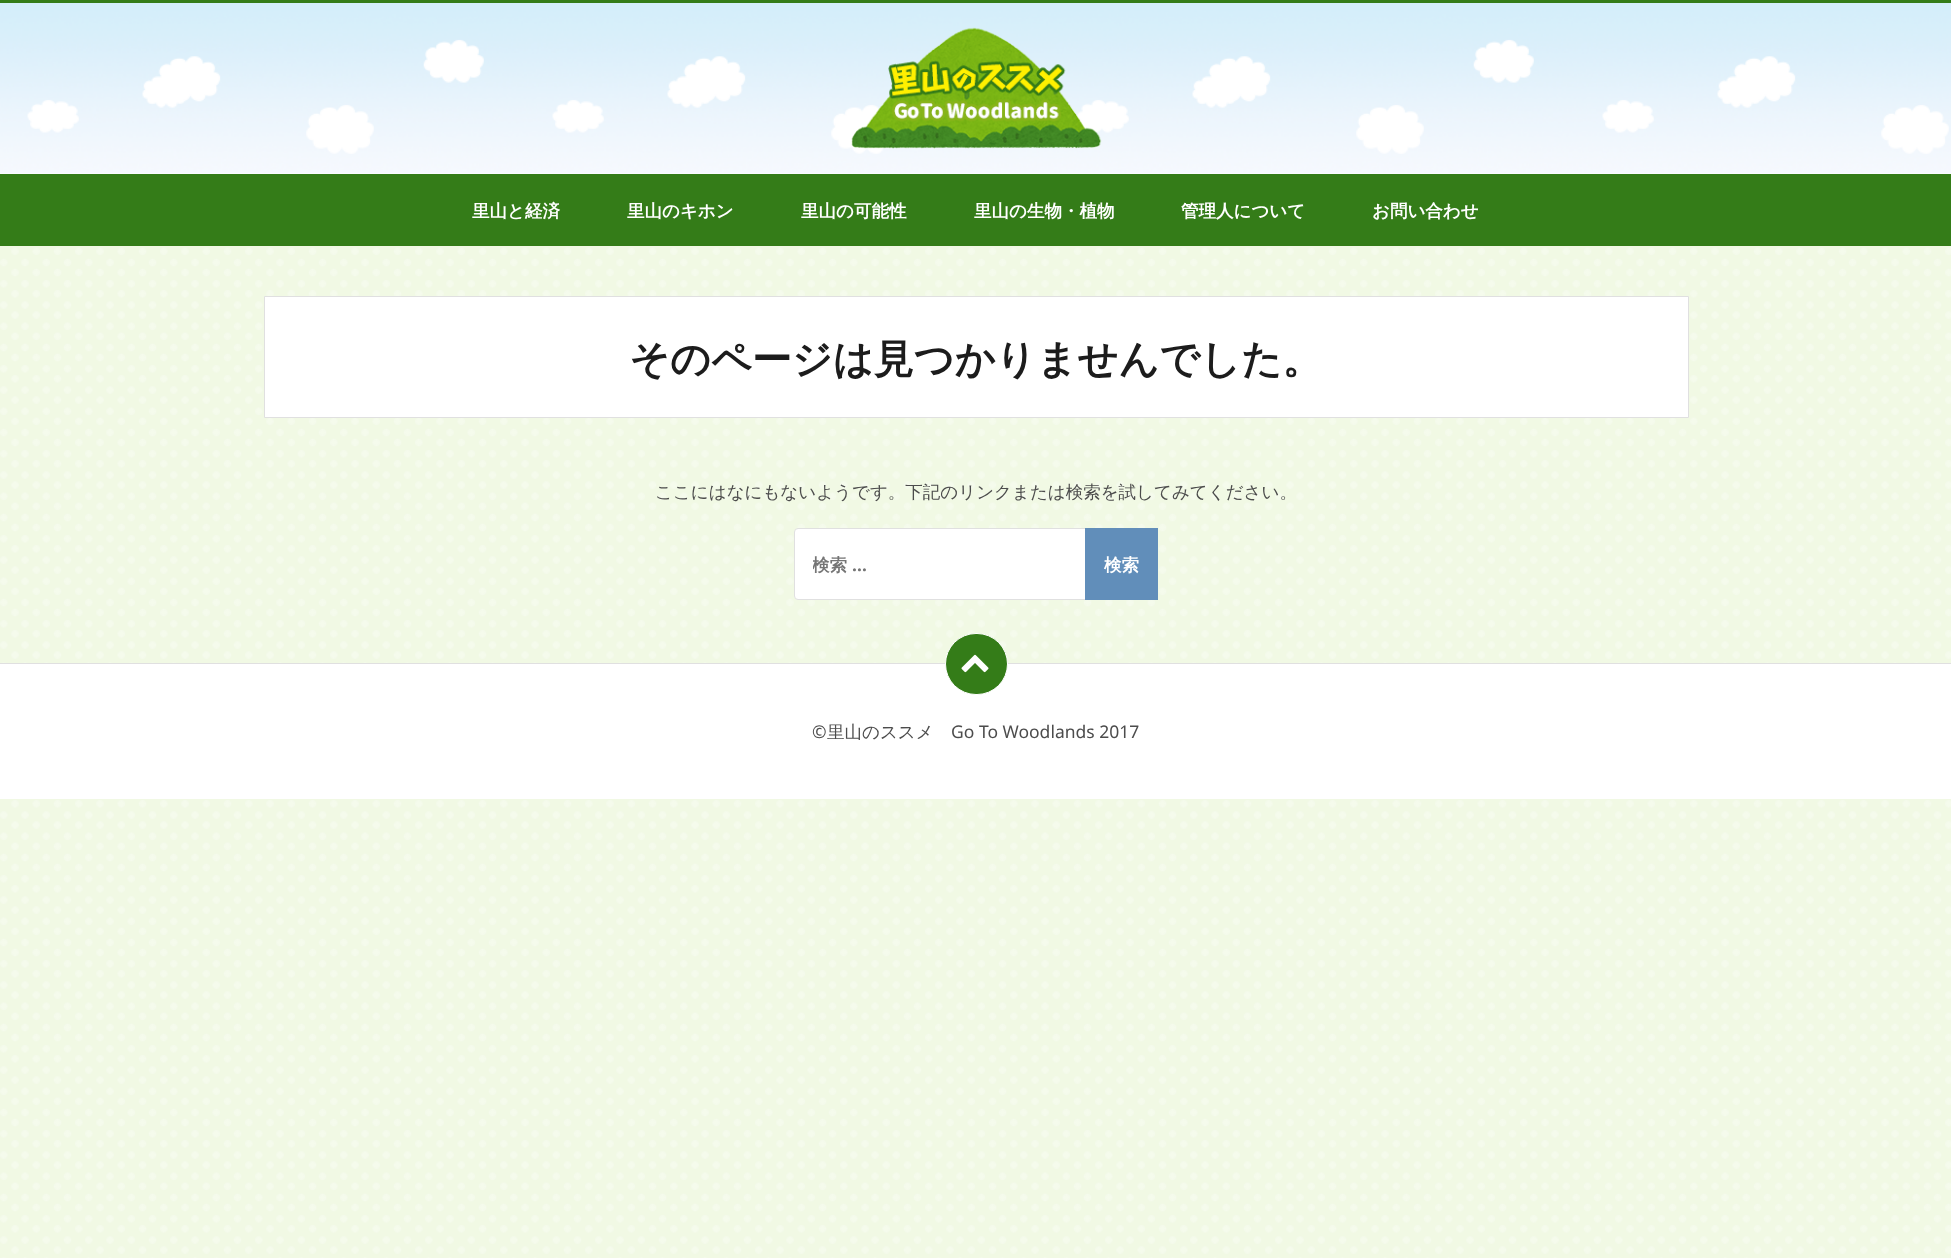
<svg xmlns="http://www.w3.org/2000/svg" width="1951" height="1258">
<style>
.a{font:bold 17.5px WenQuanYi Zen Hei;fill:#fff}
.b{font:bold 40px WenQuanYi Zen Hei;fill:#1c1c1c}
.c{font:500 17.5px WenQuanYi Zen Hei;fill:#4c4c4c}
.d{font:bold 17.5px WenQuanYi Zen Hei;fill:#757575}
.e{font:bold 17.5px Noto Sans;fill:#757575}
.f{font:17.5px Noto Sans;fill:#4c4c4c}
</style>
<defs>
<clipPath id="clip1"><path d="M813 551h282v25H813z"/></clipPath>
</defs>
<rect width="100%" height="100%" fill="#fff"/>
<image href="1.png" x="0" y="246" width="1951" height="1012"/>
<image href="2.png" x="0" y="3" width="1951" height="171"/>
<path fill="#347c18" d="M0 0h1951v3H0z"/>
<image href="3.png" x="851" y="27" width="251" height="122"/>
<path fill="#347c18" d="M0 174h1951v72H0z"/>
<path fill="#fff" stroke="#e0e0e0" d="M264.5 296.5h1424v121H264.5z"/>
<rect fill="#fff" stroke="#e0e0e0" x="794.5" y="528.5" width="324" height="71" rx="3.5"/>
<path fill="#618eba" d="M1085 528h73v72H1085z"/>
<path fill="#fff" d="M0 664h1951v135H0z"/>
<path fill="#e0e0e0" d="M0 663h1951v1H0z"/>
<rect fill="#347c18" stroke="#fff" x="945.5" y="633.5" width="62" height="61" rx="30.5"/>
<image href="4.png" x="961" y="654" width="28" height="19"/>
<text class="a" x="472" y="217">里山と経済</text>
<text class="a" x="627" y="217">里山のキホン</text>
<text class="a" x="801" y="217">里山の可能性</text>
<text class="a" x="974" y="217">里山の生物・植物</text>
<text class="a" x="1181" y="217">管理人について</text>
<text class="a" x="1372" y="217">お問い合わせ</text>
<text class="b" x="629" y="373">そのページは見つかりませんでした。</text>
<text class="c" x="655" y="498">ここにはなにもないようです。下記のリンクまたは検索を試してみてください。</text>
<g clip-path="url(#clip1)">
<text class="d" x="812" y="571">検索</text>
</g>
<text class="e" x="852" y="571">…</text>
<text class="a" x="1104" y="571">検索</text>
<text class="f" x="812" y="738">©</text>
<text class="c" x="827" y="738">里山のススメ</text>
<text class="f" x="951" y="738">Go To Woodlands 2017</text>
</svg>
